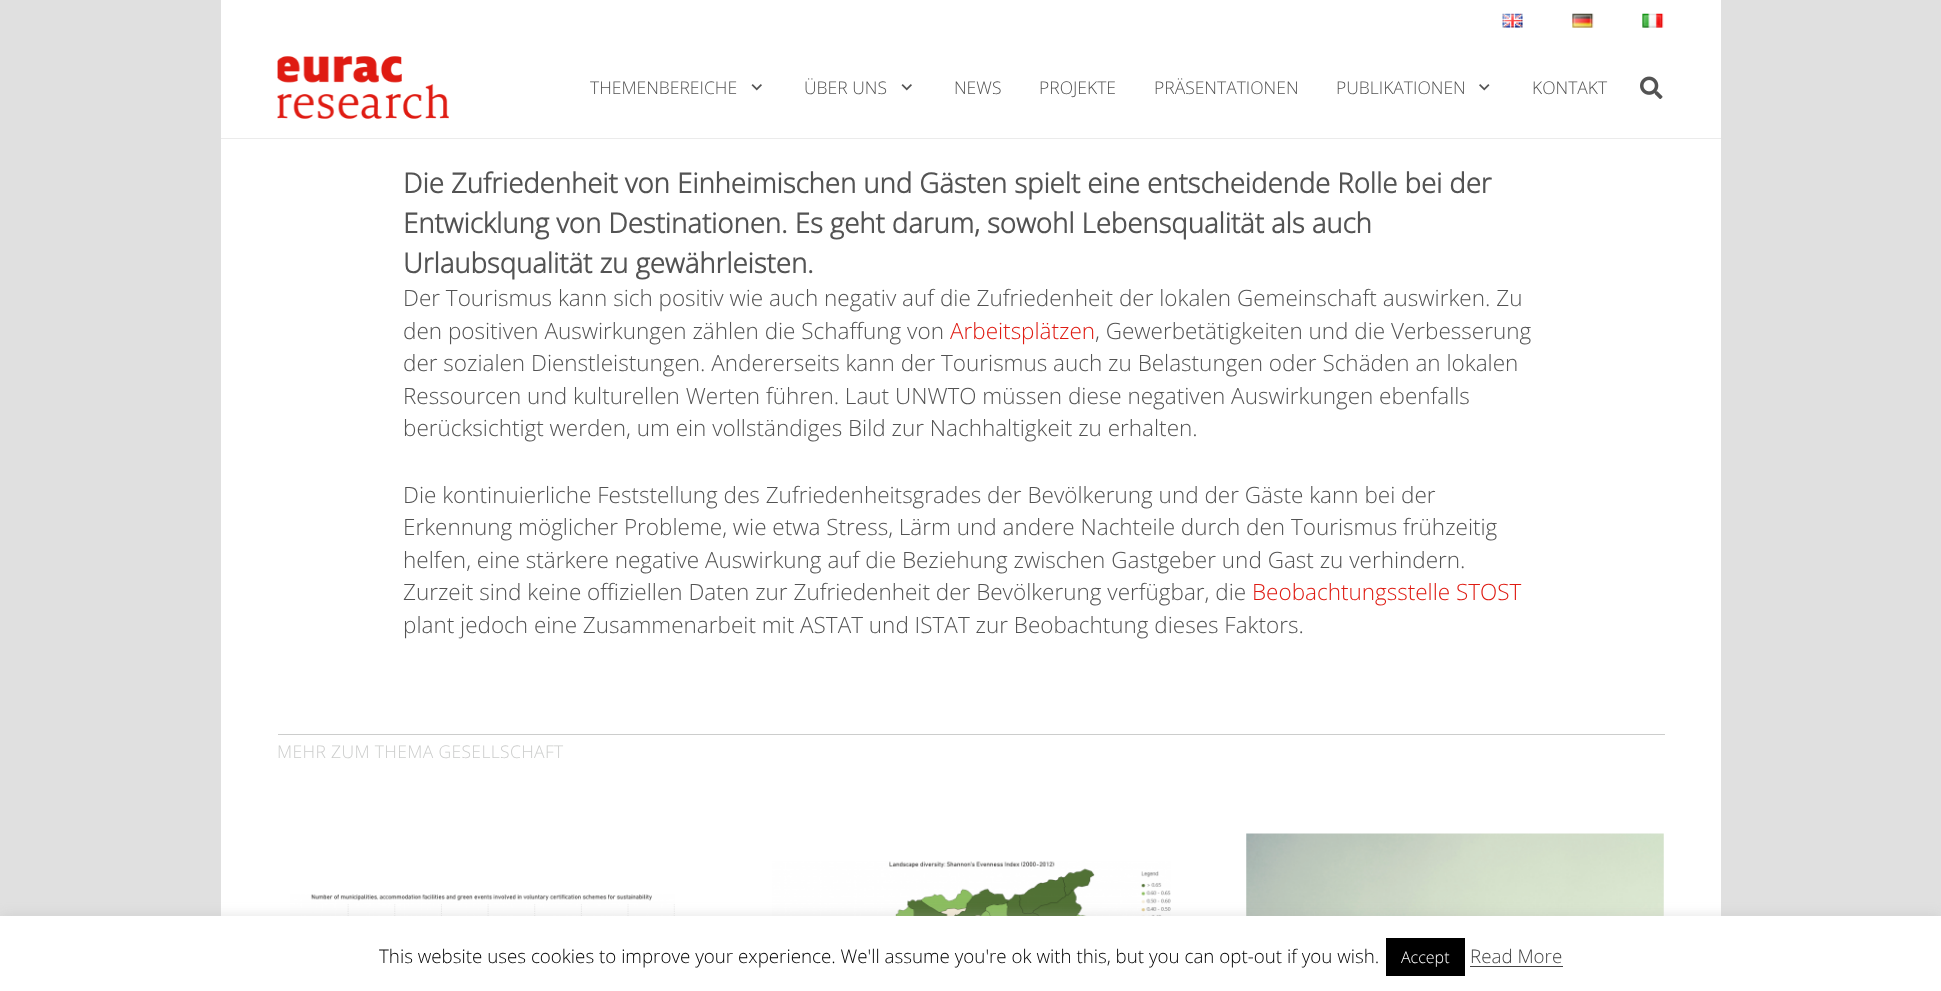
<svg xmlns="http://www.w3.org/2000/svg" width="1941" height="991">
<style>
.a{font:300 17.5px Open Sans;fill:#535353}
.b{font:bold 27.5px Open Sans;fill:#535353}
.c{font:300 22.5px Open Sans;fill:#535353}
.d{font:300 22.5px Open Sans;fill:#df1b12}
.e{font:300 17.5px Open Sans;letter-spacing:0.35px;fill:#cccdcc}
.f{font:300 18.75px Open Sans;fill:#000}
.g{font:300 16px Open Sans;fill:#fff}
.h{font:300 18.75px Open Sans;fill:#444}
</style>
<rect width="100%" height="100%" fill="#e0e0e0"/>
<path fill="#fff" d="M221 0h1500v916H221z"/>
<image href="1.png" x="1502" y="13" width="21" height="15"/>
<image href="2.png" x="1572" y="13" width="22" height="15"/>
<image href="3.png" x="1642" y="13" width="22" height="15"/>
<path fill="#ebebeb" d="M221 39v100h1500v-1h-1500z"/>
<image href="4.png" x="277" y="56" width="172" height="63"/>
<image href="5.png" x="751" y="84" width="11" height="7"/>
<image href="5.png" x="901" y="84" width="11" height="7"/>
<image href="6.png" x="1479" y="84" width="11" height="7"/>
<image href="7.png" x="1640" y="76" width="23" height="23"/>
<path fill="#cccdcc" d="M278 734h1387v1H278z"/>
<image href="8.png" x="290" y="894" width="385" height="22"/>
<image href="9.png" x="772" y="861" width="399" height="55"/>
<image href="10.png" x="1246" y="833" width="418" height="83"/>
<path fill="#acabab4d" filter="blur(6px)" d="M0 915h1941v75H0z"/>
<path fill="#fff" d="M0 916h1941v75H0z"/>
<path fill="#000" d="M1386 938h79v38H1386z"/>
<path fill="#444" d="M1470 966h93v1H1470z"/>
<text class="a" x="590" y="94">THEMENBEREICHE</text>
<text class="a" x="804" y="94">ÜBER UNS</text>
<text class="a" x="954" y="94">NEWS</text>
<text class="a" x="1039" y="94">PROJEKTE</text>
<text class="a" x="1154" y="94">PRÄSENTATIONEN</text>
<text class="a" x="1336" y="94">PUBLIKATIONEN</text>
<text class="a" x="1532" y="94">KONTAKT</text>
<text class="b" x="403" y="193">Die Zufriedenheit von Einheimischen und Gästen spielt eine entscheidende Rolle bei der</text>
<text class="b" x="403" y="233">Entwicklung von Destinationen. Es geht darum, sowohl Lebensqualität als auch</text>
<text class="b" x="403" y="273">Urlaubsqualität zu gewährleisten.</text>
<text class="c" x="403" y="306">Der Tourismus kann sich positiv wie auch negativ auf die Zufriedenheit der lokalen Gemeinschaft auswirken. Zu</text>
<text class="c" x="403" y="339">den positiven Auswirkungen zählen die Schaffung von</text>
<text class="d" x="950" y="339">Arbeitsplätzen</text>
<text class="c" x="1095" y="339">, Gewerbetätigkeiten und die Verbesserung</text>
<text class="c" x="403" y="371">der sozialen Dienstleistungen. Andererseits kann der Tourismus auch zu Belastungen oder Schäden an lokalen</text>
<text class="c" x="403" y="404">Ressourcen und kulturellen Werten führen. Laut UNWTO müssen diese negativen Auswirkungen ebenfalls</text>
<text class="c" x="403" y="436">berücksichtigt werden, um ein vollständiges Bild zur Nachhaltigkeit zu erhalten.</text>
<text class="c" x="403" y="503">Die kontinuierliche Feststellung des Zufriedenheitsgrades der Bevölkerung und der Gäste kann bei der</text>
<text class="c" x="403" y="535">Erkennung möglicher Probleme, wie etwa Stress, Lärm und andere Nachteile durch den Tourismus frühzeitig</text>
<text class="c" x="403" y="568">helfen, eine stärkere negative Auswirkung auf die Beziehung zwischen Gastgeber und Gast zu verhindern.</text>
<text class="c" x="403" y="600">Zurzeit sind keine offiziellen Daten zur Zufriedenheit der Bevölkerung verfügbar, die</text>
<text class="d" x="1252" y="600">Beobachtungsstelle STOST</text>
<text class="c" x="403" y="633">plant jedoch eine Zusammenarbeit mit ASTAT und ISTAT zur Beobachtung dieses Faktors.</text>
<text class="e" x="277" y="758">MEHR ZUM THEMA GESELLSCHAFT</text>
<text class="f" x="379" y="963">This website uses cookies to improve your experience. We'll assume you're ok with this, but you can opt-out if you wish.</text>
<text class="g" x="1401" y="963">Accept</text>
<text class="h" x="1470" y="963">Read More</text>
</svg>
